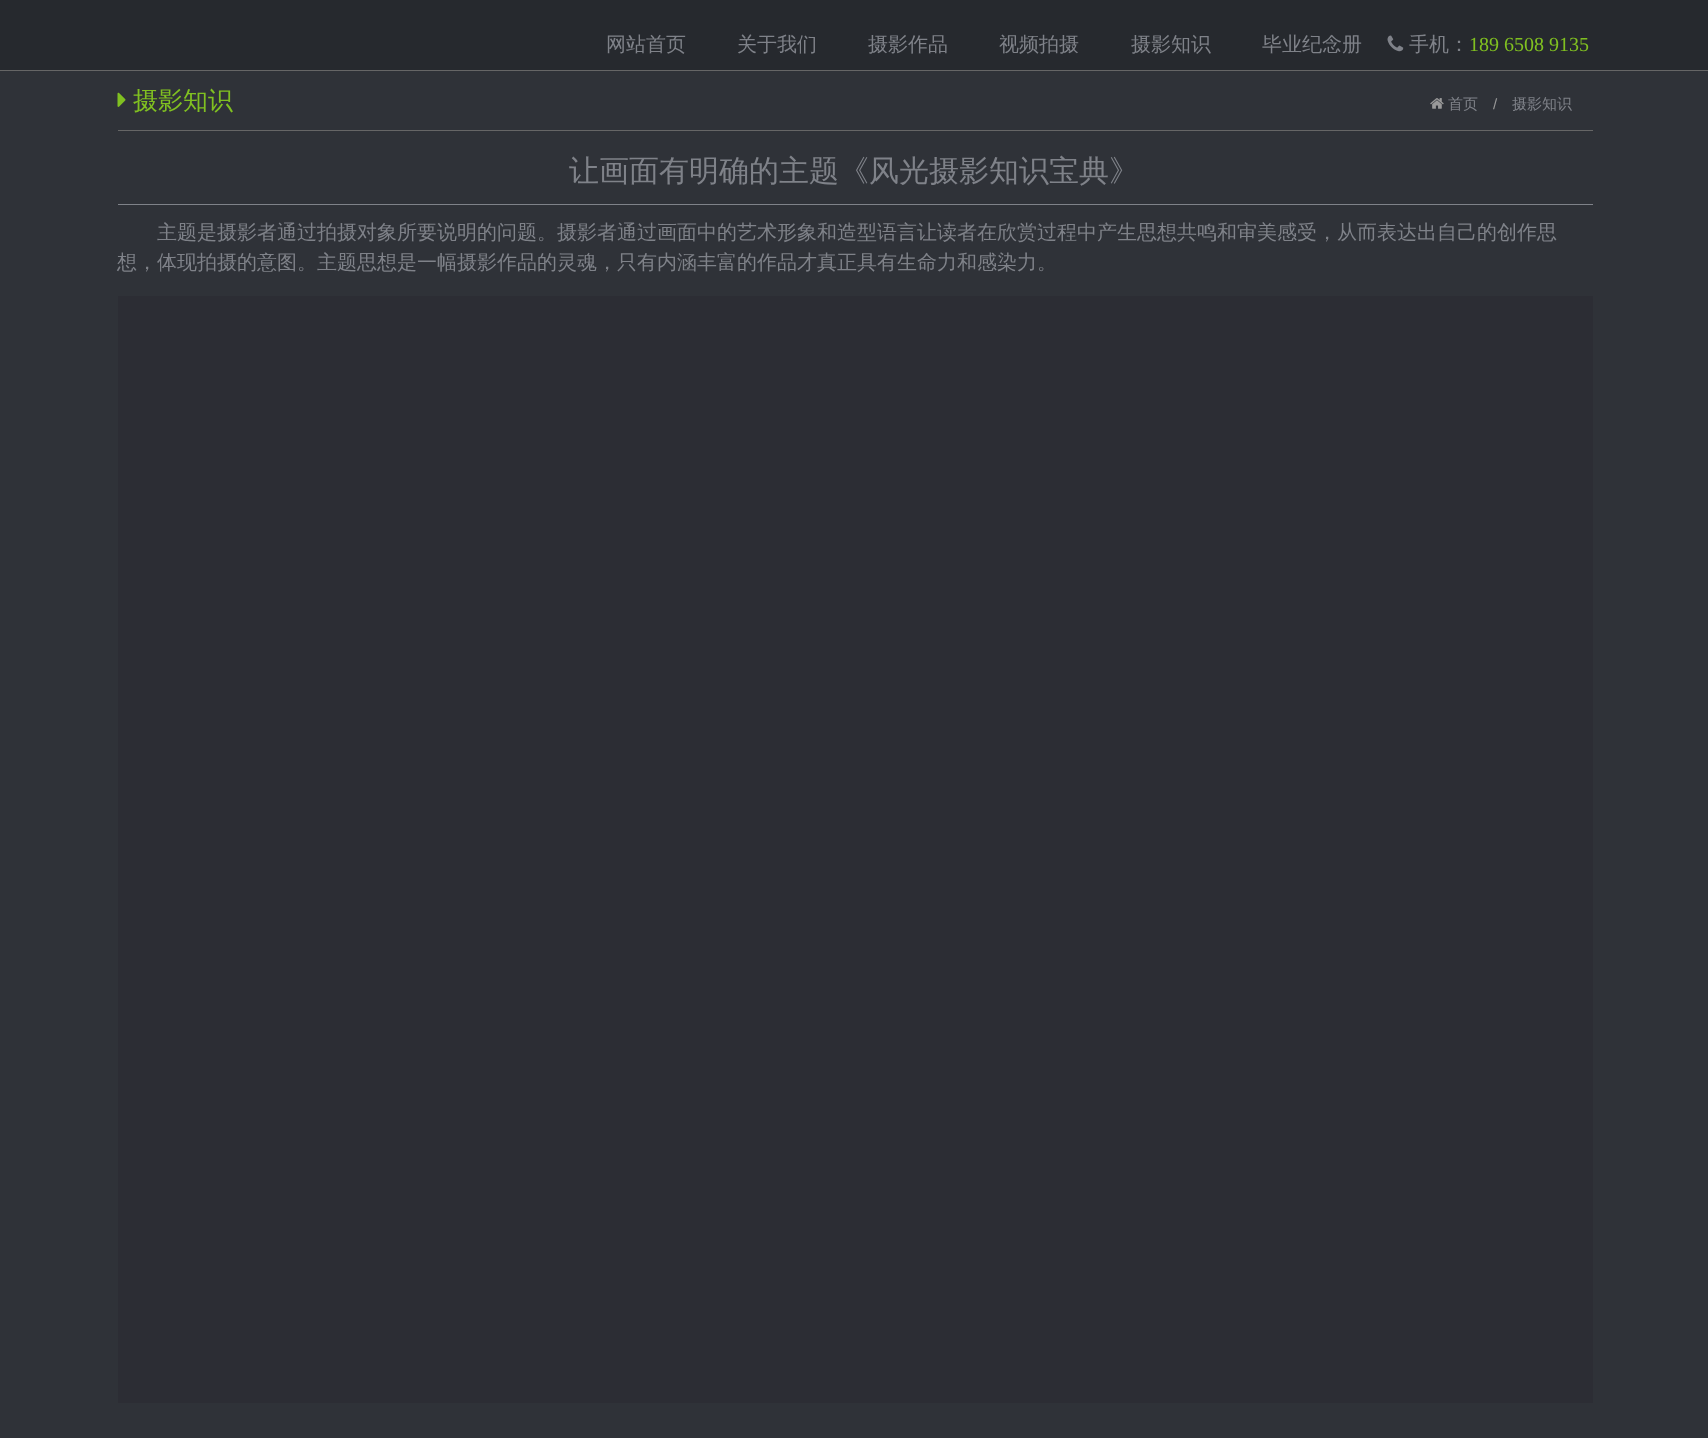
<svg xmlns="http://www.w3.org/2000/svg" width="1708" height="1438">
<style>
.a{font:500 20px WenQuanYi Zen Hei;fill:#7f8289}
.b{font:20px Liberation Serif;fill:#80c021}
.c{font:500 25px WenQuanYi Zen Hei;fill:#80c021}
.d{font:500 15px WenQuanYi Zen Hei;fill:#7f8289}
.e{font:15px Liberation Sans;fill:#999}
.f{font:500 30px WenQuanYi Zen Hei;fill:#7f8289}
</style>
<rect width="100%" height="100%" fill="#2f3238"/>
<path fill="#26292e" d="M0 0h1708v70H0z"/>
<path fill="#666" d="M0 70h1708v1H0z"/>
<image href="1.png" x="1387" y="35" width="17" height="17"/>
<path fill="#666" d="M118 130h1475v1H118z"/>
<image href="2.png" x="117" y="92" width="9" height="15"/>
<image href="3.png" x="1430" y="98" width="14" height="11"/>
<path fill="#7f8289" d="M118 204h1475v1H118z"/>
<path fill="#2c2d34" d="M118 296h1475v1107H118z"/>
<text class="a" x="606" y="51">网站首页</text>
<text class="a" x="737" y="51">关于我们</text>
<text class="a" x="868" y="51">摄影作品</text>
<text class="a" x="999" y="51">视频拍摄</text>
<text class="a" x="1131" y="51">摄影知识</text>
<text class="a" x="1262" y="51">毕业纪念册</text>
<text class="a" x="1409" y="51">手机：</text>
<text class="b" x="1469" y="51">189 6508 9135</text>
<text class="c" x="133" y="109">摄影知识</text>
<text class="d" x="1448" y="109">首页</text>
<text class="e" x="1493" y="109">/</text>
<text class="d" x="1512" y="109">摄影知识</text>
<text class="f" x="569" y="181">让画面有明确的主题《风光摄影知识宝典》</text>
<text class="a" x="157" y="239">主题是摄影者通过拍摄对象所要说明的问题。摄影者通过画面中的艺术形象和造型语言让读者在欣赏过程中产生思想共鸣和审美感受，从而表达出自己的创作思</text>
<text class="a" x="117" y="269">想，体现拍摄的意图。主题思想是一幅摄影作品的灵魂，只有内涵丰富的作品才真正具有生命力和感染力。</text>
</svg>
